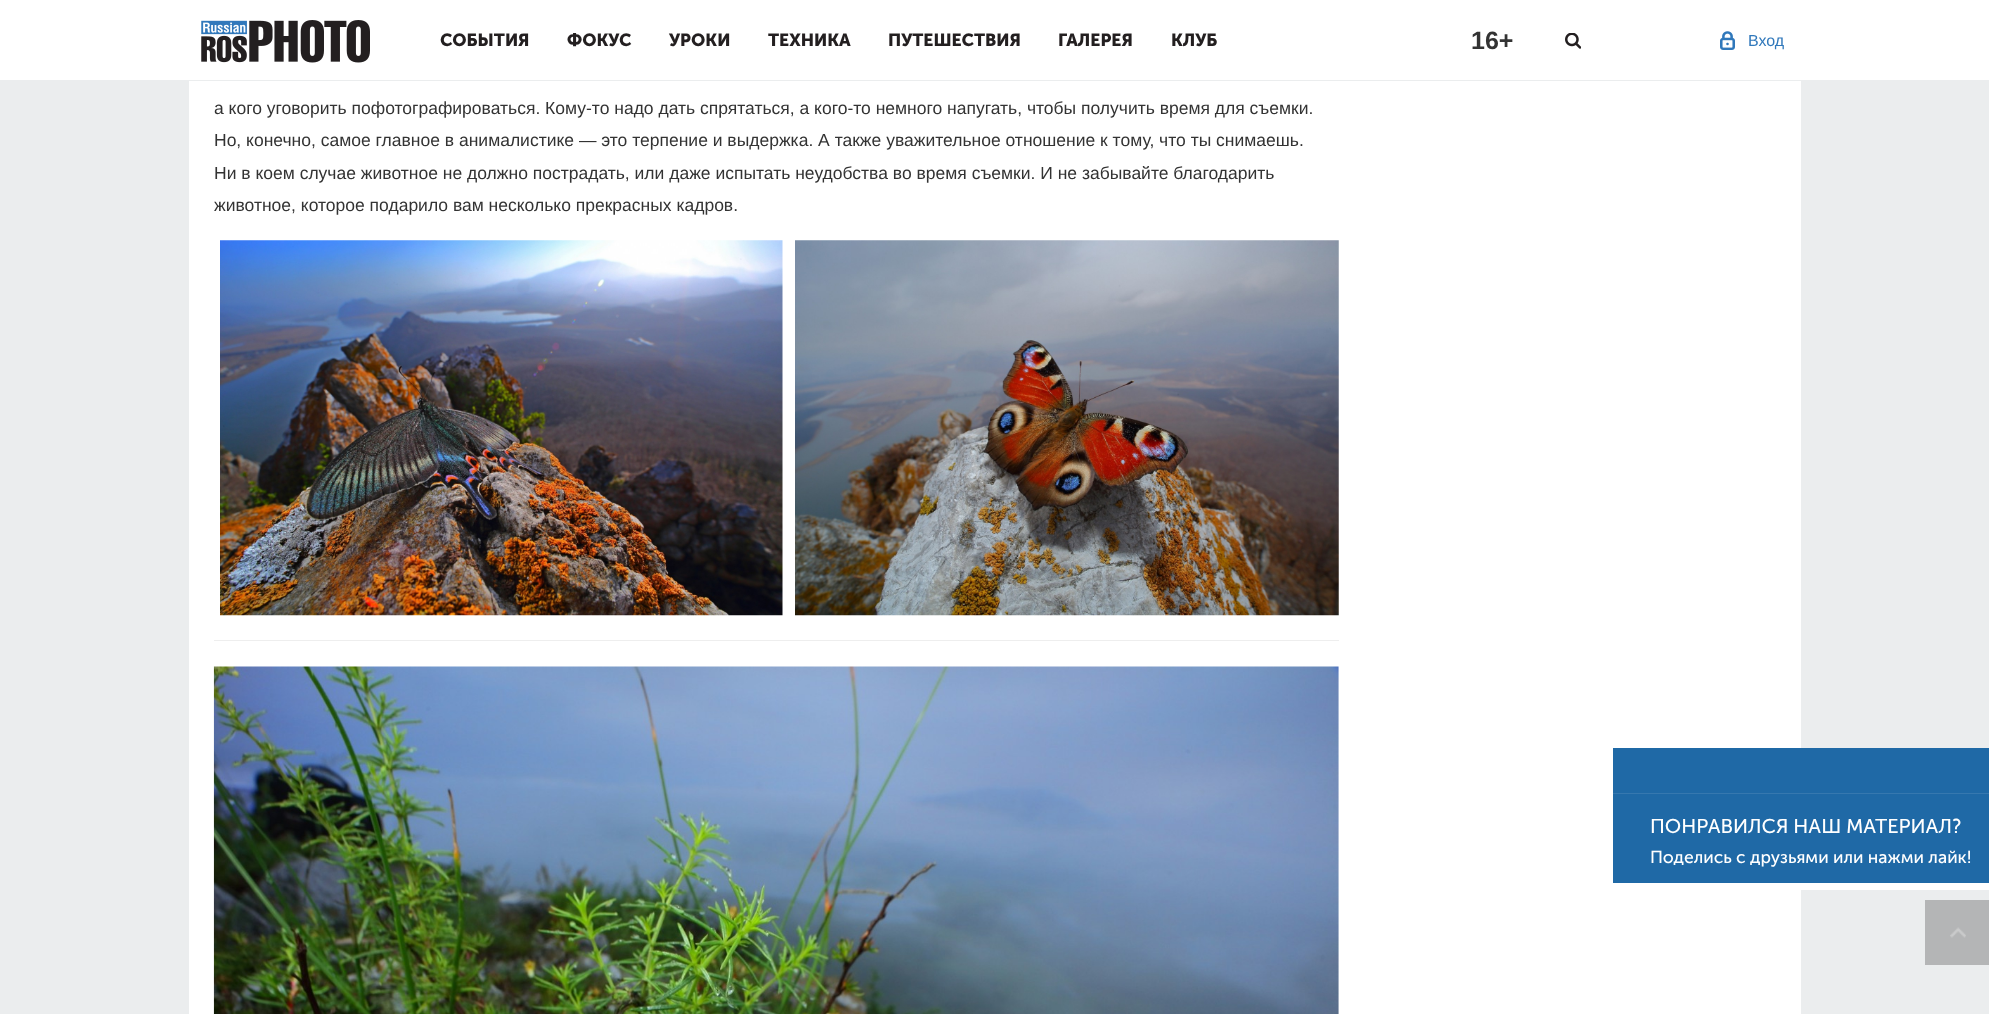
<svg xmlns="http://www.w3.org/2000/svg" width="1989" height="1014">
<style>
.a{font:bold 17.5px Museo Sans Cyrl;fill:#231f20}
.b{font:bold 25px Liberation Sans;fill:#333}
.c{font:16px Liberation Sans;fill:#3078bb}
.d{font:17.5px Liberation Sans;fill:#333}
.e{font:20px Museo Sans Cyrl;fill:#fff}
.f{font:17.5px Museo Sans Cyrl;fill:#fff}
</style>
<rect width="100%" height="100%" fill="#ebedee"/>
<path fill="#fff" d="M0 0h1989v80H0z"/>
<image href="1.png" x="201" y="20" width="169" height="43"/>
<image href="2.png" x="1565" y="33" width="16" height="16"/>
<image href="3.png" x="1720" y="31" width="15" height="19"/>
<path fill="#fff" d="M189 81h1612v933H189z"/>
<image href="4.png" x="220" y="240" width="563" height="376"/>
<image href="5.png" x="795" y="240" width="544" height="376"/>
<path fill="#eee" d="M214 640h1125v1H214z"/>
<image href="6.png" x="213" y="666" width="1126" height="348"/>
<path fill="#1f69a6" d="M1613 748h376v45H1613z"/>
<path fill="#3678af" d="M1613 793h376v1H1613z"/>
<path fill="#1f69a6" d="M1613 794h376v89H1613z"/>
<path fill="#fff" d="M1801 883h188v7H1801z"/>
<path fill="#b4b5b6" d="M1925 900h64v65H1925z"/>
<image href="7.png" x="1950" y="927" width="16" height="11"/>
<text class="a" x="440" y="46">СОБЫТИЯ</text>
<text class="a" x="567" y="46">ФОКУС</text>
<text class="a" x="669" y="46">УРОКИ</text>
<text class="a" x="768" y="46">ТЕХНИКА</text>
<text class="a" x="888" y="46">ПУТЕШЕСТВИЯ</text>
<text class="a" x="1058" y="46">ГАЛЕРЕЯ</text>
<text class="a" x="1171" y="46">КЛУБ</text>
<text class="b" x="1471" y="49">16+</text>
<text class="c" x="1748" y="46">Вход</text>
<text class="d" x="214" y="114">а кого уговорить пофотографироваться. Кому-то надо дать спрятаться, а кого-то немного напугать, чтобы получить время для съемки.</text>
<text class="d" x="214" y="146">Но, конечно, самое главное в анималистике — это терпение и выдержка. А также уважительное отношение к тому, что ты снимаешь.</text>
<text class="d" x="214" y="179">Ни в коем случае животное не должно пострадать, или даже испытать неудобства во время съемки. И не забывайте благодарить</text>
<text class="d" x="214" y="211">животное, которое подарило вам несколько прекрасных кадров.</text>
<text class="e" x="1650" y="833">ПОНРАВИЛСЯ НАШ МАТЕРИАЛ?</text>
<text class="f" x="1650" y="863">Поделись с друзьями или нажми лайк!</text>
</svg>
